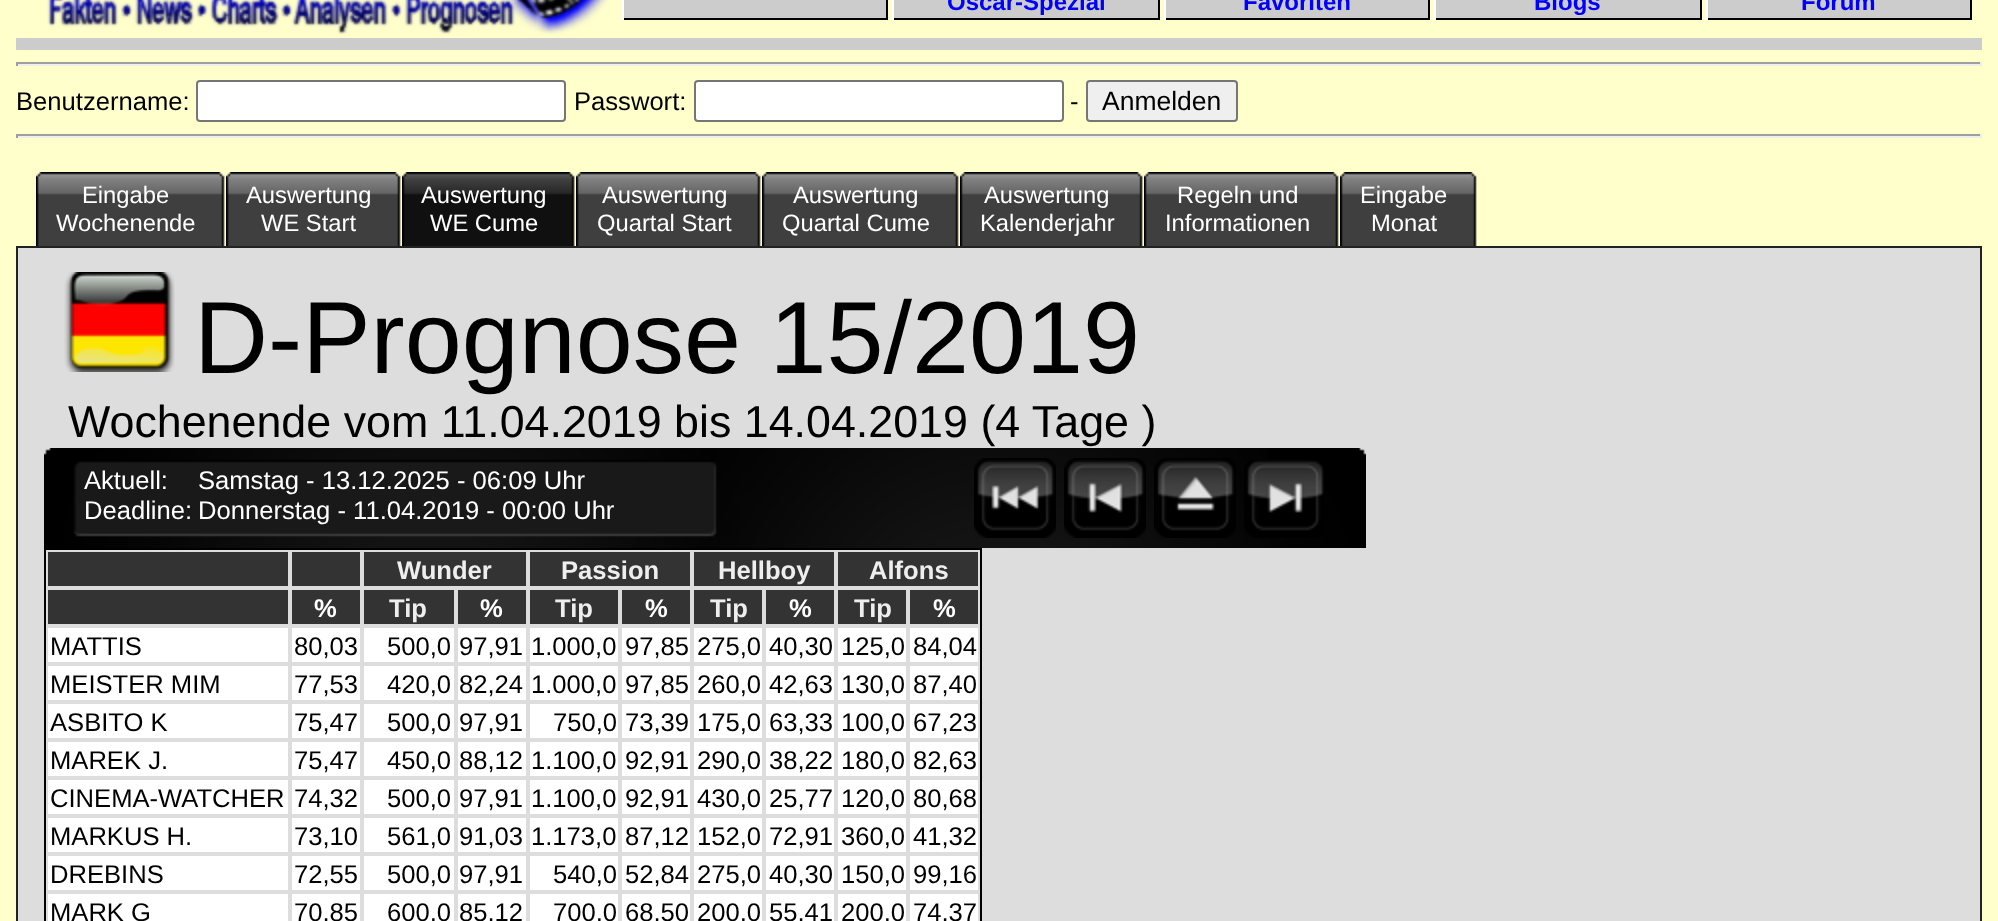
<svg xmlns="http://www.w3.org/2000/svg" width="1998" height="921">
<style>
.a{font:bold 24px Liberation Sans;fill:#00f}
.b{font:25.6px Liberation Sans;fill:#000}
.c{font:26.5px Liberation Sans;fill:#000}
.d{font:23.75px Liberation Sans;fill:#fff}
.e{font:102.5px Liberation Sans;fill:#000}
.f{font:44.8px Liberation Sans;fill:#000}
.g{font:25.6px Liberation Sans;fill:#fff}
.h{font:bold 25.6px Liberation Sans;fill:#eee}
.i{font:bold 25.6px Liberation Sans;fill:#fff}
</style>
<rect width="100%" height="100%" fill="#ffc"/>
<image href="1.png" x="47" y="0" width="561" height="34"/>
<path fill="#ccc" d="M624 0h262v18H624z"/>
<path fill="#000" d="M886 0h2v20H886z"/>
<path fill="#000" d="M622 18h266v2H622z"/>
<path fill="#fff" d="M622 0h2v20H622z"/>
<path fill="#ccc" d="M894 0h264v18H894z"/>
<path fill="#000" d="M1158 0h2v20H1158z"/>
<path fill="#000" d="M892 18h268v2H892z"/>
<path fill="#fff" d="M892 0h2v20H892z"/>
<path fill="#ccc" d="M1166 0h262v18H1166z"/>
<path fill="#000" d="M1428 0h2v20H1428z"/>
<path fill="#000" d="M1164 18h266v2H1164z"/>
<path fill="#fff" d="M1164 0h2v20H1164z"/>
<path fill="#ccc" d="M1436 0h264v18H1436z"/>
<path fill="#000" d="M1700 0h2v20H1700z"/>
<path fill="#000" d="M1434 18h268v2H1434z"/>
<path fill="#fff" d="M1434 0h2v20H1434z"/>
<path fill="#ccc" d="M1708 0h262v18H1708z"/>
<path fill="#000" d="M1970 0h2v20H1970z"/>
<path fill="#000" d="M1706 18h266v2H1706z"/>
<path fill="#fff" d="M1706 0h2v20H1706z"/>
<path fill="#ccc" d="M16 38h1966v12H16z"/>
<path fill="#9f9f9f" d="M16 62h1966v2H16z"/>
<path fill="#eee" d="M1980 62h2v4H1980z"/>
<path fill="#eee" d="M16 64h1966v2H16z"/>
<path fill="#9f9f9f" d="M16 62h2v4H16z"/>
<rect fill="#fff" stroke="#767676" stroke-width="2" x="197" y="81" width="368" height="40" rx="3"/>
<rect fill="#fff" stroke="#767676" stroke-width="2" x="695" y="81" width="368" height="40" rx="3"/>
<rect fill="#efefef" stroke="#767676" stroke-width="2" x="1087" y="81" width="150" height="40" rx="3"/>
<path fill="#9f9f9f" d="M16 134h1966v2H16z"/>
<path fill="#eee" d="M1980 134h2v4H1980z"/>
<path fill="#eee" d="M16 136h1966v2H16z"/>
<path fill="#9f9f9f" d="M16 134h2v4H16z"/>
<image href="2.png" x="36" y="172" width="8" height="74"/>
<image href="3.png" x="44" y="172" width="181" height="74"/>
<image href="2.png" x="226" y="172" width="8" height="74"/>
<image href="4.png" x="234" y="172" width="167" height="74"/>
<image href="5.png" x="402" y="172" width="8" height="74"/>
<image href="6.png" x="410" y="172" width="165" height="74"/>
<image href="2.png" x="576" y="172" width="8" height="74"/>
<image href="7.png" x="584" y="172" width="177" height="74"/>
<image href="2.png" x="762" y="172" width="8" height="74"/>
<image href="8.png" x="770" y="172" width="189" height="74"/>
<image href="2.png" x="960" y="172" width="8" height="74"/>
<image href="9.png" x="968" y="172" width="175" height="74"/>
<image href="2.png" x="1144" y="172" width="8" height="74"/>
<image href="10.png" x="1152" y="172" width="187" height="74"/>
<image href="2.png" x="1340" y="172" width="8" height="74"/>
<image href="11.png" x="1348" y="172" width="129" height="74"/>
<path fill="#ddd" stroke="#222" stroke-width="2" d="M17 247h1964v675H17z"/>
<image href="12.png" x="64" y="272" width="111" height="100"/>
<image href="13.png" x="44" y="448" width="1322" height="100"/>
<image href="14.png" x="974" y="458" width="82" height="80"/>
<image href="15.png" x="1064" y="458" width="82" height="80"/>
<image href="16.png" x="1154" y="458" width="82" height="80"/>
<image href="17.png" x="1244" y="460" width="80" height="78"/>
<path fill="none" stroke="#000" stroke-width="2" d="M45 549h936v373H45z"/>
<path fill="#333" d="M48 552h240v34H48z"/>
<path fill="#333" d="M292 552h68v34H292z"/>
<path fill="#333" d="M364 552h162v34H364z"/>
<path fill="#333" d="M530 552h160v34H530z"/>
<path fill="#333" d="M694 552h140v34H694z"/>
<path fill="#333" d="M838 552h140v34H838z"/>
<path fill="#333" d="M48 590h240v34H48z"/>
<path fill="#333" d="M292 590h68v34H292z"/>
<path fill="#333" d="M364 590h90v34H364z"/>
<path fill="#333" d="M458 590h68v34H458z"/>
<path fill="#333" d="M530 590h88v34H530z"/>
<path fill="#333" d="M622 590h68v34H622z"/>
<path fill="#333" d="M694 590h68v34H694z"/>
<path fill="#333" d="M766 590h68v34H766z"/>
<path fill="#333" d="M838 590h68v34H838z"/>
<path fill="#333" d="M910 590h68v34H910z"/>
<path fill="#fff" d="M48 628h240v34H48z"/>
<path fill="#fff" d="M292 628h68v34H292z"/>
<path fill="#fff" d="M364 628h90v34H364z"/>
<path fill="#fff" d="M458 628h68v34H458z"/>
<path fill="#fff" d="M530 628h88v34H530z"/>
<path fill="#fff" d="M622 628h68v34H622z"/>
<path fill="#fff" d="M694 628h68v34H694z"/>
<path fill="#fff" d="M766 628h68v34H766z"/>
<path fill="#fff" d="M838 628h68v34H838z"/>
<path fill="#fff" d="M910 628h68v34H910z"/>
<path fill="#fff" d="M48 666h240v34H48z"/>
<path fill="#fff" d="M292 666h68v34H292z"/>
<path fill="#fff" d="M364 666h90v34H364z"/>
<path fill="#fff" d="M458 666h68v34H458z"/>
<path fill="#fff" d="M530 666h88v34H530z"/>
<path fill="#fff" d="M622 666h68v34H622z"/>
<path fill="#fff" d="M694 666h68v34H694z"/>
<path fill="#fff" d="M766 666h68v34H766z"/>
<path fill="#fff" d="M838 666h68v34H838z"/>
<path fill="#fff" d="M910 666h68v34H910z"/>
<path fill="#fff" d="M48 704h240v34H48z"/>
<path fill="#fff" d="M292 704h68v34H292z"/>
<path fill="#fff" d="M364 704h90v34H364z"/>
<path fill="#fff" d="M458 704h68v34H458z"/>
<path fill="#fff" d="M530 704h88v34H530z"/>
<path fill="#fff" d="M622 704h68v34H622z"/>
<path fill="#fff" d="M694 704h68v34H694z"/>
<path fill="#fff" d="M766 704h68v34H766z"/>
<path fill="#fff" d="M838 704h68v34H838z"/>
<path fill="#fff" d="M910 704h68v34H910z"/>
<path fill="#fff" d="M48 742h240v34H48z"/>
<path fill="#fff" d="M292 742h68v34H292z"/>
<path fill="#fff" d="M364 742h90v34H364z"/>
<path fill="#fff" d="M458 742h68v34H458z"/>
<path fill="#fff" d="M530 742h88v34H530z"/>
<path fill="#fff" d="M622 742h68v34H622z"/>
<path fill="#fff" d="M694 742h68v34H694z"/>
<path fill="#fff" d="M766 742h68v34H766z"/>
<path fill="#fff" d="M838 742h68v34H838z"/>
<path fill="#fff" d="M910 742h68v34H910z"/>
<path fill="#fff" d="M48 780h240v34H48z"/>
<path fill="#fff" d="M292 780h68v34H292z"/>
<path fill="#fff" d="M364 780h90v34H364z"/>
<path fill="#fff" d="M458 780h68v34H458z"/>
<path fill="#fff" d="M530 780h88v34H530z"/>
<path fill="#fff" d="M622 780h68v34H622z"/>
<path fill="#fff" d="M694 780h68v34H694z"/>
<path fill="#fff" d="M766 780h68v34H766z"/>
<path fill="#fff" d="M838 780h68v34H838z"/>
<path fill="#fff" d="M910 780h68v34H910z"/>
<path fill="#fff" d="M48 818h240v34H48z"/>
<path fill="#fff" d="M292 818h68v34H292z"/>
<path fill="#fff" d="M364 818h90v34H364z"/>
<path fill="#fff" d="M458 818h68v34H458z"/>
<path fill="#fff" d="M530 818h88v34H530z"/>
<path fill="#fff" d="M622 818h68v34H622z"/>
<path fill="#fff" d="M694 818h68v34H694z"/>
<path fill="#fff" d="M766 818h68v34H766z"/>
<path fill="#fff" d="M838 818h68v34H838z"/>
<path fill="#fff" d="M910 818h68v34H910z"/>
<path fill="#fff" d="M48 856h240v34H48z"/>
<path fill="#fff" d="M292 856h68v34H292z"/>
<path fill="#fff" d="M364 856h90v34H364z"/>
<path fill="#fff" d="M458 856h68v34H458z"/>
<path fill="#fff" d="M530 856h88v34H530z"/>
<path fill="#fff" d="M622 856h68v34H622z"/>
<path fill="#fff" d="M694 856h68v34H694z"/>
<path fill="#fff" d="M766 856h68v34H766z"/>
<path fill="#fff" d="M838 856h68v34H838z"/>
<path fill="#fff" d="M910 856h68v34H910z"/>
<path fill="#fff" d="M48 894h240v27H48z"/>
<path fill="#fff" d="M292 894h68v27H292z"/>
<path fill="#fff" d="M364 894h90v27H364z"/>
<path fill="#fff" d="M458 894h68v27H458z"/>
<path fill="#fff" d="M530 894h88v27H530z"/>
<path fill="#fff" d="M622 894h68v27H622z"/>
<path fill="#fff" d="M694 894h68v27H694z"/>
<path fill="#fff" d="M766 894h68v27H766z"/>
<path fill="#fff" d="M838 894h68v27H838z"/>
<path fill="#fff" d="M910 894h68v27H910z"/>
<text class="a" x="947" y="10">Oscar-Spezial</text>
<text class="a" x="1243" y="10">Favoriten</text>
<text class="a" x="1534" y="10">Blogs</text>
<text class="a" x="1801" y="10">Forum</text>
<text class="b" x="16" y="110">Benutzername:</text>
<text class="b" x="574" y="110">Passwort:</text>
<text class="b" x="1070" y="110">-</text>
<text class="c" x="1102" y="110">Anmelden</text>
<text class="d" x="82" y="203">Eingabe</text>
<text class="d" x="56" y="231">Wochenende</text>
<text class="d" x="246" y="203">Auswertung</text>
<text class="d" x="261" y="231">WE Start</text>
<text class="d" x="421" y="203">Auswertung</text>
<text class="d" x="430" y="231">WE Cume</text>
<text class="d" x="602" y="203">Auswertung</text>
<text class="d" x="597" y="231">Quartal Start</text>
<text class="d" x="793" y="203">Auswertung</text>
<text class="d" x="782" y="231">Quartal Cume</text>
<text class="d" x="984" y="203">Auswertung</text>
<text class="d" x="980" y="231">Kalenderjahr</text>
<text class="d" x="1177" y="203">Regeln und</text>
<text class="d" x="1165" y="231">Informationen</text>
<text class="d" x="1360" y="203">Eingabe</text>
<text class="d" x="1371" y="231">Monat</text>
<text class="e" x="194" y="373">D-Prognose 15/2019</text>
<text class="f" x="68" y="437">Wochenende vom 11.04.2019 bis 14.04.2019 (4 Tage )</text>
<text class="g" x="84" y="489">Aktuell:</text>
<text class="g" x="198" y="489">Samstag - 13.12.2025 - 06:09 Uhr</text>
<text class="g" x="84" y="519">Deadline:</text>
<text class="g" x="198" y="519">Donnerstag - 11.04.2019 - 00:00 Uhr</text>
<text class="h" x="397" y="579">Wunder</text>
<text class="h" x="561" y="579">Passion</text>
<text class="h" x="718" y="579">Hellboy</text>
<text class="h" x="869" y="579">Alfons</text>
<text class="i" x="314" y="617">%</text>
<text class="h" x="389" y="617">Tip</text>
<text class="i" x="480" y="617">%</text>
<text class="h" x="555" y="617">Tip</text>
<text class="i" x="645" y="617">%</text>
<text class="h" x="710" y="617">Tip</text>
<text class="i" x="789" y="617">%</text>
<text class="h" x="854" y="617">Tip</text>
<text class="i" x="933" y="617">%</text>
<text class="b" x="50" y="655">MATTIS</text>
<text class="b" x="294" y="655">80,03</text>
<text class="b" x="387" y="655">500,0</text>
<text class="b" x="459" y="655">97,91</text>
<text class="b" x="531" y="655">1.000,0</text>
<text class="b" x="625" y="655">97,85</text>
<text class="b" x="697" y="655">275,0</text>
<text class="b" x="769" y="655">40,30</text>
<text class="b" x="841" y="655">125,0</text>
<text class="b" x="913" y="655">84,04</text>
<text class="b" x="50" y="693">MEISTER MIM</text>
<text class="b" x="294" y="693">77,53</text>
<text class="b" x="387" y="693">420,0</text>
<text class="b" x="459" y="693">82,24</text>
<text class="b" x="531" y="693">1.000,0</text>
<text class="b" x="625" y="693">97,85</text>
<text class="b" x="697" y="693">260,0</text>
<text class="b" x="769" y="693">42,63</text>
<text class="b" x="841" y="693">130,0</text>
<text class="b" x="913" y="693">87,40</text>
<text class="b" x="50" y="731">ASBITO K</text>
<text class="b" x="294" y="731">75,47</text>
<text class="b" x="387" y="731">500,0</text>
<text class="b" x="459" y="731">97,91</text>
<text class="b" x="553" y="731">750,0</text>
<text class="b" x="625" y="731">73,39</text>
<text class="b" x="697" y="731">175,0</text>
<text class="b" x="769" y="731">63,33</text>
<text class="b" x="841" y="731">100,0</text>
<text class="b" x="913" y="731">67,23</text>
<text class="b" x="50" y="769">MAREK J.</text>
<text class="b" x="294" y="769">75,47</text>
<text class="b" x="387" y="769">450,0</text>
<text class="b" x="459" y="769">88,12</text>
<text class="b" x="531" y="769">1.100,0</text>
<text class="b" x="625" y="769">92,91</text>
<text class="b" x="697" y="769">290,0</text>
<text class="b" x="769" y="769">38,22</text>
<text class="b" x="841" y="769">180,0</text>
<text class="b" x="913" y="769">82,63</text>
<text class="b" x="50" y="807">CINEMA-WATCHER</text>
<text class="b" x="294" y="807">74,32</text>
<text class="b" x="387" y="807">500,0</text>
<text class="b" x="459" y="807">97,91</text>
<text class="b" x="531" y="807">1.100,0</text>
<text class="b" x="625" y="807">92,91</text>
<text class="b" x="697" y="807">430,0</text>
<text class="b" x="769" y="807">25,77</text>
<text class="b" x="841" y="807">120,0</text>
<text class="b" x="913" y="807">80,68</text>
<text class="b" x="50" y="845">MARKUS H.</text>
<text class="b" x="294" y="845">73,10</text>
<text class="b" x="387" y="845">561,0</text>
<text class="b" x="459" y="845">91,03</text>
<text class="b" x="531" y="845">1.173,0</text>
<text class="b" x="625" y="845">87,12</text>
<text class="b" x="697" y="845">152,0</text>
<text class="b" x="769" y="845">72,91</text>
<text class="b" x="841" y="845">360,0</text>
<text class="b" x="913" y="845">41,32</text>
<text class="b" x="50" y="883">DREBINS</text>
<text class="b" x="294" y="883">72,55</text>
<text class="b" x="387" y="883">500,0</text>
<text class="b" x="459" y="883">97,91</text>
<text class="b" x="553" y="883">540,0</text>
<text class="b" x="625" y="883">52,84</text>
<text class="b" x="697" y="883">275,0</text>
<text class="b" x="769" y="883">40,30</text>
<text class="b" x="841" y="883">150,0</text>
<text class="b" x="913" y="883">99,16</text>
<text class="b" x="50" y="921">MARK G</text>
<text class="b" x="294" y="921">70,85</text>
<text class="b" x="387" y="921">600,0</text>
<text class="b" x="459" y="921">85,12</text>
<text class="b" x="553" y="921">700,0</text>
<text class="b" x="625" y="921">68,50</text>
<text class="b" x="697" y="921">200,0</text>
<text class="b" x="769" y="921">55,41</text>
<text class="b" x="841" y="921">200,0</text>
<text class="b" x="913" y="921">74,37</text>
</svg>
